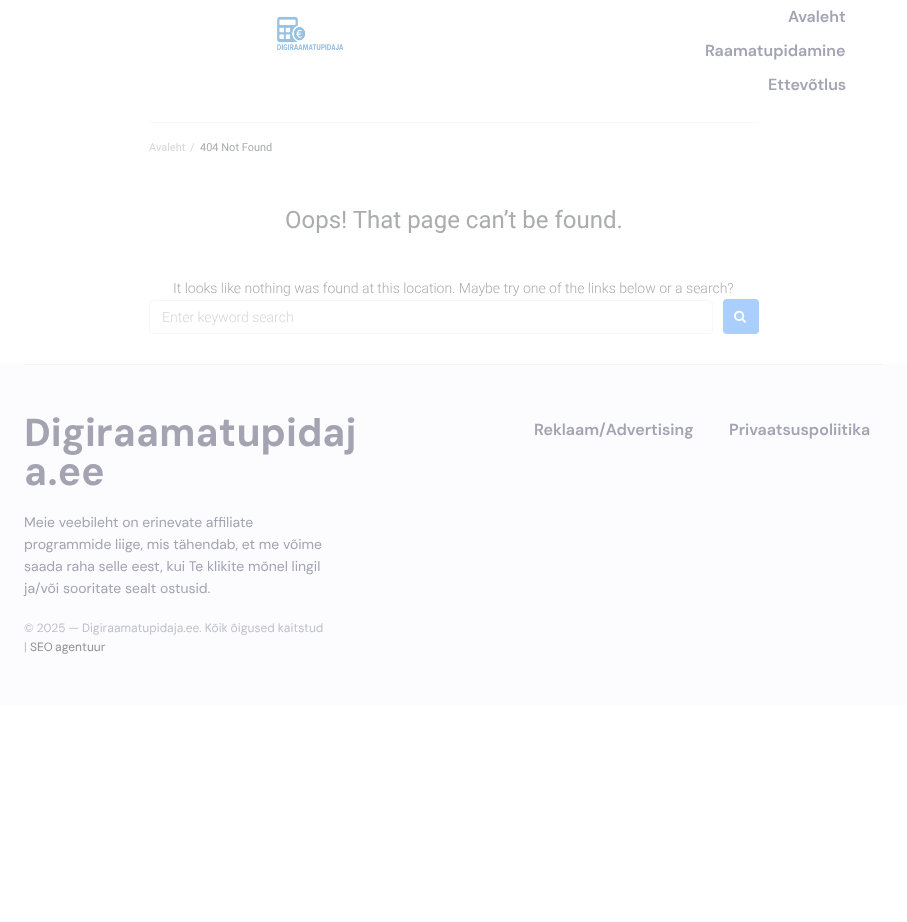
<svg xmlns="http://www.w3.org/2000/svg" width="907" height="922">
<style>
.a{font:600 16px DM Sans;fill:#a3a3b2}
.b{font:11px Roboto;fill:#d7d7d8}
.c{font:11px Roboto;fill:#abacae}
.d{font:24px Roboto;fill:#abacae}
.e{font:300 14px Roboto;fill:#abacae}
.f{font:300 14px Roboto;fill:#d7d7d8}
.g{font:bold 39px DM Sans;fill:#a3a3b2}
.h{font:14px DM Sans;fill:#a3a3b2}
.i{font:12px 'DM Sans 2';fill:#bfbfc9}
.j{font:12px 'DM Sans 2';fill:#919191}
</style>
<rect width="100%" height="100%" fill="#fff"/>
<image href="1.png" x="277" y="16" width="67" height="35"/>
<path fill="#f6f7f7" d="M149 122h610v1H149z"/>
<rect fill="none" stroke="#f6f7f7" x="149.5" y="300.5" width="563" height="33" rx="3.5"/>
<rect fill="#aacffe" x="723" y="299" width="36" height="35" rx="4"/>
<image href="2.png" x="734" y="310" width="12" height="13"/>
<path fill="#fcfcff" d="M0 364h907v341H0z"/>
<path fill="#f2f2f5" d="M24 364h859v1H24z"/>
<text class="a" x="788" y="22">Avaleht</text>
<text class="a" x="705" y="56">Raamatupidamine</text>
<text class="a" x="768" y="90">Ettevõtlus</text>
<text class="b" x="149" y="151">Avaleht</text>
<text class="b" x="190" y="151">/</text>
<text class="c" x="200" y="151">404 Not Found</text>
<text class="d" x="285" y="228">Oops! That page can’t be found.</text>
<text class="e" x="173" y="293">It looks like nothing was found at this location. Maybe try one of the links below or a search?</text>
<text class="f" x="162" y="322">Enter keyword search</text>
<text class="g" x="24" y="446">Digiraamatupidaj</text>
<text class="g" x="24" y="485">a.ee</text>
<text class="h" x="24" y="527">Meie veebileht on erinevate affiliate</text>
<text class="h" x="24" y="549">programmide liige, mis tähendab, et me võime</text>
<text class="h" x="24" y="571">saada raha selle eest, kui Te klikite mõnel lingil</text>
<text class="h" x="24" y="593">ja/või sooritate sealt ostusid.</text>
<text class="a" x="534" y="435">Reklaam/Advertising</text>
<text class="a" x="729" y="435">Privaatsuspoliitika</text>
<text class="i" x="24" y="632" word-spacing="-0.25">© 2025 — Digiraamatupidaja.ee. Kõik õigused kaitstud</text>
<text class="i" x="24" y="651">|</text>
<text class="j" x="30" y="651" word-spacing="-1">SEO agentuur</text>
</svg>
